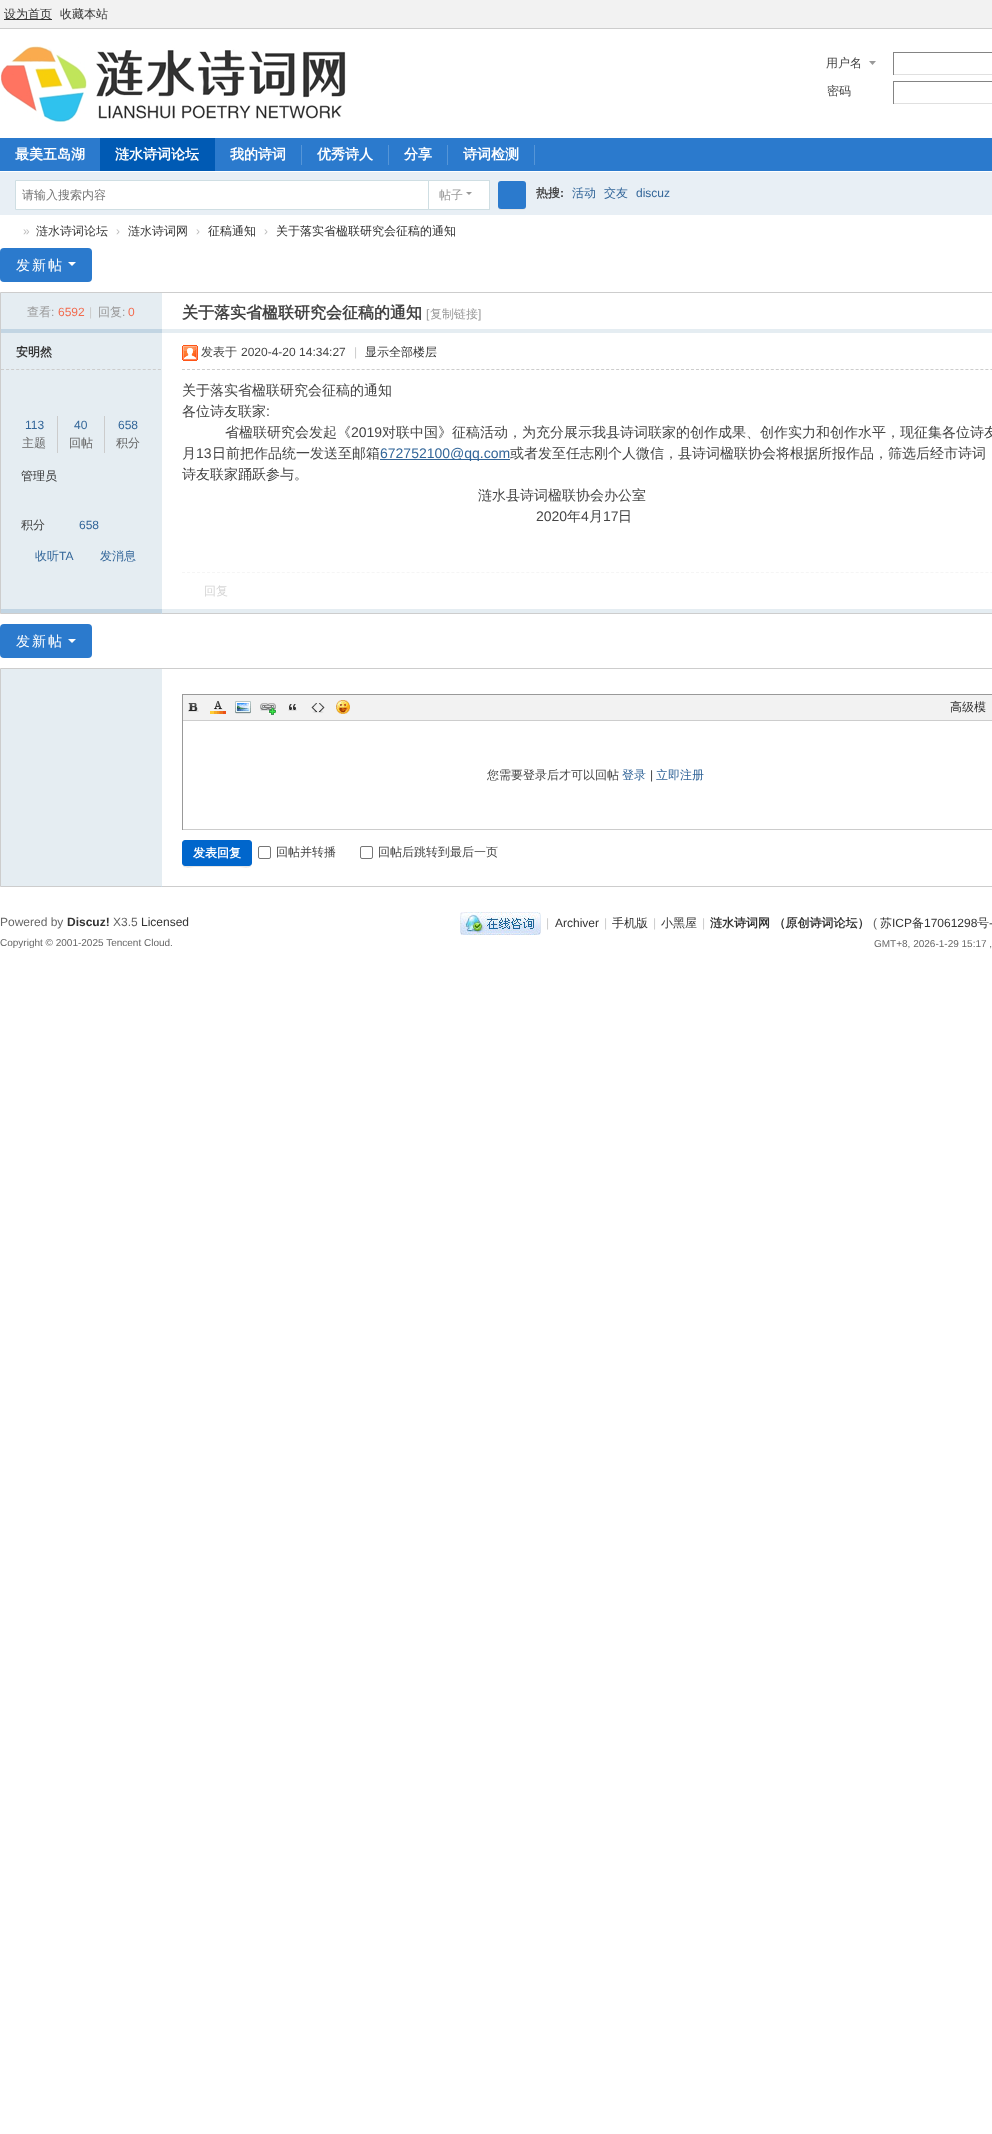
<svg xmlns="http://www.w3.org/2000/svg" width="992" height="2134">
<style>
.a{font:500 12px WenQuanYi Zen Hei;fill:#333}
.b{font:500 12px WenQuanYi Zen Hei;fill:#444}
.c{font:bold 14px WenQuanYi Zen Hei;fill:#fff}
.d{font:500 12px WenQuanYi Zen Hei;fill:#757575}
.e{font:500 12px WenQuanYi Zen Hei;fill:#999}
.f{font:bold 12px WenQuanYi Zen Hei;fill:#444}
.g{font:bold 12px Liberation Sans;fill:#444}
.h{font:500 12px WenQuanYi Zen Hei;fill:#369}
.i{font:12px Liberation Sans;fill:#369}
.j{font:12px Liberation Sans;fill:#bdbdbd}
.k{font:500 14px WenQuanYi Zen Hei;letter-spacing:2px;fill:#fff}
.l{font:12px Liberation Sans;fill:#999}
.m{font:12px Liberation Sans;fill:#f26c4f}
.n{font:12px Liberation Sans;fill:#ccc}
.o{font:bold 16px WenQuanYi Zen Hei;fill:#444}
.p{font:bold 12px WenQuanYi Zen Hei;fill:#333}
.q{font:500 12px WenQuanYi Zen Hei;fill:#666}
.r{font:12px Liberation Sans;fill:#444}
.s{font:500 14px WenQuanYi Zen Hei;fill:#444}
.t{font:14px Liberation Sans;fill:#444}
.u{font:14px Liberation Sans;fill:#369}
.v{font:500 12px WenQuanYi Zen Hei;fill:#d6d6d6}
.w{font:bold 12px WenQuanYi Zen Hei;fill:#fff}
.x{font:12px Liberation Sans;fill:#666}
.y{font:bold 12px Liberation Sans;fill:#333}
.z{font:12px Liberation Sans;fill:#333}
.a1{font:10px Liberation Sans;fill:#666}
</style>
<rect width="100%" height="100%" fill="#fff"/>
<path fill="#f2f2f2" d="M0 0h992v28H0z"/>
<path fill="#cdcdcd" d="M0 28h992v1H0z"/>
<path fill="#333" d="M4 19h48v1H4z"/>
<image href="1.png" x="0" y="46" width="346" height="76"/>
<path fill="#999" d="M876 61h-7l3.5 4z"/>
<path fill="#848484" d="M893 52h99v1H893z"/>
<path fill="#e0e0e0" d="M893 74h99v1H893z"/>
<path fill="#848484" d="M893 52h1v23H893z"/>
<path fill="#848484" d="M893 81h99v1H893z"/>
<path fill="#e0e0e0" d="M893 103h99v1H893z"/>
<path fill="#848484" d="M893 81h1v23H893z"/>
<path fill="#2b7acd" d="M0 138h992v33H0z"/>
<path fill="#005ab4" d="M100 138h115v33H100z"/>
<path fill="#5595d7" d="M301 145h1v20H301z"/>
<path fill="#5595d7" d="M388 145h1v20H388z"/>
<path fill="#5595d7" d="M447 145h1v20H447z"/>
<path fill="#5595d7" d="M534 145h1v20H534z"/>
<path fill="#e8eff5" d="M0 172h992v43H0z"/>
<path fill="#cfdee3" d="M427 180h63v1H427z"/>
<path fill="#cfdee3" d="M489 180h1v30H489z"/>
<path fill="#cfdee3" d="M427 209h63v1H427z"/>
<path fill="#fff" stroke="#cfdee3" d="M15.5 180.5h413v29H15.5z"/>
<path fill="#fff" d="M429 181h60v28H429z"/>
<path fill="#999" d="M466 192h6l-3 3z"/>
<path fill="#e5e5e5" d="M498 206c0 4.5 3 4 6.5 4h15c3.5 0 6.5 .5 6.5-4c0 1.5-1.5 3-3 3h-22c-1.5 0-3-1.5-3-3z"/>
<rect fill="#2b7acd" x="498" y="181" width="28" height="28" rx="3"/>
<rect fill="#2b7acd" y="248" width="92" height="34" rx="4"/>
<path fill="#fff" d="M68 262h8l-4 4z"/>
<path fill="none" stroke="#cdcdcd" d="M0.5 292.5h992v321H0.5z"/>
<path fill="#e5edf2" d="M1 293h161v36H1z"/>
<path fill="#c2d5e3" d="M1 329h161v4H1z"/>
<path fill="#e5edf2" d="M162 329h830v4H162z"/>
<path fill="#e5edf2" d="M1 333h161v276H1z"/>
<path fill="none" stroke="#cdcdcd" stroke-dasharray="3 2.06" d="M1 369.5h160"/>
<path fill="#ccc" d="M57 416h1v37H57z"/>
<path fill="#ccc" d="M104 416h1v37H104z"/>
<path fill="none" stroke="#cdcdcd" stroke-dasharray="3 1.99" d="M182 369.5h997"/>
<image href="2.png" x="182" y="345" width="16" height="16"/>
<path fill="#369" d="M380 459h130v1H380z"/>
<path fill="none" stroke="#f5f5f5" stroke-dasharray="3 1.99" d="M182 572.5h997"/>
<path fill="#c2d5e3" d="M161 609h1v5H161z"/>
<path fill="#c2d5e3" d="M1 609h161v4H1z"/>
<path fill="#e5edf2" d="M162 609h830v4H162z"/>
<rect fill="#2b7acd" y="624" width="92" height="34" rx="4"/>
<path fill="#fff" d="M68 639h8l-4 4z"/>
<path fill="none" stroke="#cdcdcd" d="M0.5 668.5h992v218H0.5z"/>
<path fill="#c2d5e3" d="M161 886h1v1H161z"/>
<path fill="#e5edf2" d="M1 669h161v217H1z"/>
<path fill="#999" d="M182 694h810v1H182z"/>
<path fill="#ccc" d="M182 829h810v1H182z"/>
<path fill="#999" d="M182 694h1v136H182z"/>
<path fill="#f2f2f2" d="M183 695h809v25H183z"/>
<path fill="#cdcdcd" d="M183 720h809v1H183z"/>
<image href="3.png" x="188" y="703" width="11" height="9"/>
<image href="4.png" x="210" y="701" width="16" height="13"/>
<image href="5.png" x="235" y="701" width="16" height="13"/>
<image href="6.png" x="260" y="703" width="17" height="12"/>
<image href="7.png" x="288" y="704" width="9" height="7"/>
<image href="8.png" x="311" y="703" width="14" height="10"/>
<image href="9.png" x="335" y="700" width="15" height="14"/>
<path fill="#e5e5e5" d="M182 863c0 7 9 4 14 4h42c5 0 14 3 14-4c0 2-1 3-3 3h-64c-2 0-3-1-3-3z"/>
<rect fill="#06c" stroke="#06c" x="182.5" y="840.5" width="69" height="25" rx="2.5"/>
<rect fill="none" stroke="#767676" x="258.5" y="846.5" width="12" height="12" rx="1.5"/>
<rect fill="none" stroke="#767676" x="360.5" y="846.5" width="12" height="12" rx="1.5"/>
<image href="10.png" x="460" y="912" width="81" height="23"/>
<text class="a" x="4" y="18">设为首页</text>
<text class="a" x="60" y="18">收藏本站</text>
<text class="b" x="826" y="67">用户名</text>
<text class="b" x="827" y="95">密码</text>
<text class="c" x="15" y="159">最美五岛湖</text>
<text class="c" x="115" y="159">涟水诗词论坛</text>
<text class="c" x="230" y="159">我的诗词</text>
<text class="c" x="317" y="159">优秀诗人</text>
<text class="c" x="404" y="159">分享</text>
<text class="c" x="463" y="159">诗词检测</text>
<text class="d" x="22" y="199">请输入搜索内容</text>
<text class="e" x="439" y="199">帖子</text>
<text class="f" x="536" y="197">热搜</text>
<text class="g" x="560" y="197">:</text>
<text class="h" x="572" y="197">活动</text>
<text class="h" x="604" y="197">交友</text>
<text class="i" x="636" y="197">discuz</text>
<text class="j" x="23" y="235">»</text>
<text class="a" x="36" y="235">涟水诗词论坛</text>
<text class="j" x="116" y="235">›</text>
<text class="a" x="128" y="235">涟水诗词网</text>
<text class="j" x="196" y="235">›</text>
<text class="a" x="208" y="235">征稿通知</text>
<text class="j" x="264" y="235">›</text>
<text class="a" x="276" y="235">关于落实省楹联研究会征稿的通知</text>
<text class="k" x="16" y="270">发新帖</text>
<text class="e" x="27" y="316">查看</text>
<text class="l" x="51" y="316">:</text>
<text class="m" x="58" y="316">6592</text>
<text class="n" x="89" y="316">|</text>
<text class="e" x="98" y="316">回复</text>
<text class="l" x="122" y="316">:</text>
<text class="m" x="128" y="316">0</text>
<text class="o" x="182" y="318">关于落实省楹联研究会征稿的通知</text>
<text class="l" x="426" y="318">[</text>
<text class="e" x="430" y="318">复制链接</text>
<text class="l" x="478" y="318">]</text>
<text class="p" x="16" y="356">安明然</text>
<text class="i" x="25" y="429">113</text>
<text class="q" x="22" y="447">主题</text>
<text class="i" x="74" y="429">40</text>
<text class="q" x="69" y="447">回帖</text>
<text class="i" x="118" y="429">658</text>
<text class="q" x="116" y="447">积分</text>
<text class="a" x="21" y="480">管理员</text>
<text class="b" x="21" y="529">积分</text>
<text class="i" x="79" y="529">658</text>
<text class="h" x="35" y="560">收听</text>
<text class="i" x="59" y="560">TA</text>
<text class="h" x="100" y="560">发消息</text>
<text class="b" x="201" y="356">发表于</text>
<text class="r" x="241" y="356">2020-4-20 14:34:27</text>
<text class="n" x="354" y="356">|</text>
<text class="a" x="365" y="356">显示全部楼层</text>
<text class="s" x="182" y="395">关于落实省楹联研究会征稿的通知</text>
<text class="s" x="182" y="416">各位诗友联家</text>
<text class="t" x="266" y="416">:</text>
<text class="s" x="225" y="437">省楹联研究会发起《</text>
<text class="t" x="351" y="437">2019</text>
<text class="s" x="382" y="437">对联中国》征稿活动，为充分展示我县诗词联家的创作成果、创作实力和创作水平，现征集各位诗友</text>
<text class="s" x="182" y="458">月</text>
<text class="t" x="196" y="458">13</text>
<text class="s" x="212" y="458">日前把作品统一发送至邮箱</text>
<text class="u" x="380" y="458">672752100@qq.com</text>
<text class="s" x="510" y="458">或者发至任志刚个人微信，县诗词楹联协会将根据所报作品，筛选后经市诗词</text>
<text class="s" x="182" y="479">诗友联家踊跃参与。</text>
<text class="s" x="478" y="500">涟水县诗词楹联协会办公室</text>
<text class="t" x="536" y="521">2020</text>
<text class="s" x="567" y="521">年</text>
<text class="t" x="581" y="521">4</text>
<text class="s" x="589" y="521">月</text>
<text class="t" x="603" y="521">17</text>
<text class="s" x="618" y="521">日</text>
<text class="v" x="204" y="595">回复</text>
<text class="k" x="16" y="646">发新帖</text>
<text class="a" x="950" y="711">高级模</text>
<text class="b" x="487" y="779">您需要登录后才可以回帖</text>
<text class="h" x="622" y="779">登录</text>
<text class="r" x="650" y="779">|</text>
<text class="h" x="656" y="779">立即注册</text>
<text class="w" x="193" y="857">发表回复</text>
<text class="b" x="276" y="856">回帖并转播</text>
<text class="b" x="378" y="856">回帖后跳转到最后一页</text>
<text class="x" x="0" y="926">Powered by</text>
<text class="y" x="67" y="926">Discuz!</text>
<text class="x" x="113" y="926">X3.5</text>
<text class="z" x="141" y="926">Licensed</text>
<text class="a1" x="0" y="946">Copyright © 2001-2025 Tencent Cloud.</text>
<text class="n" x="546" y="927">|</text>
<text class="z" x="555" y="927">Archiver</text>
<text class="n" x="604" y="927">|</text>
<text class="a" x="612" y="927">手机版</text>
<text class="n" x="653" y="927">|</text>
<text class="a" x="661" y="927">小黑屋</text>
<text class="n" x="702" y="927">|</text>
<text class="p" x="710" y="927">涟水诗词网 （原创诗词论坛）</text>
<text class="x" x="873" y="927">(</text>
<text class="a" x="880" y="927">苏</text>
<text class="z" x="892" y="927">ICP</text>
<text class="a" x="912" y="927">备</text>
<text class="z" x="924" y="927">17061298</text>
<text class="a" x="977" y="927">号</text>
<text class="z" x="989" y="927">-</text>
<text class="a1" x="874" y="947">GMT+8, 2026-1-29 15:17 ,</text>
</svg>
